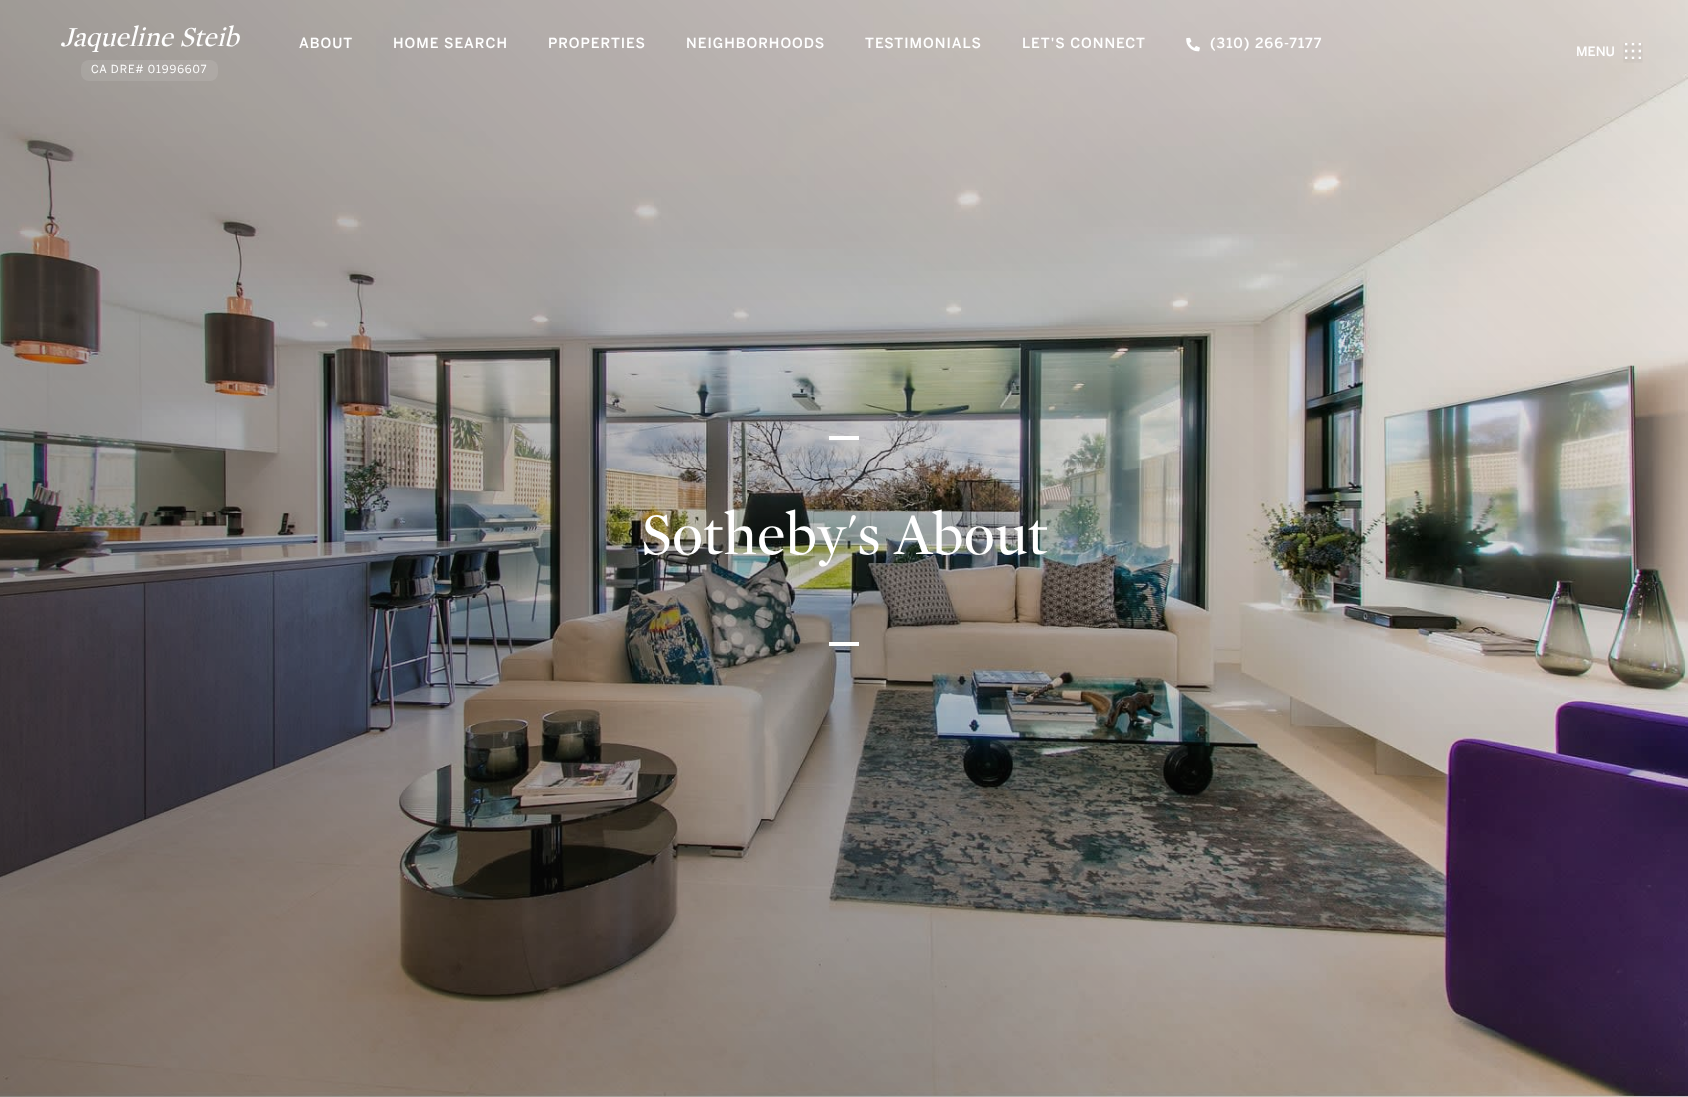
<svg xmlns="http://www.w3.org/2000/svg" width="1688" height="1097">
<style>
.a{font:italic 28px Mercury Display;fill:#fff}
.b{font:11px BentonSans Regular;letter-spacing:0.9px;fill:#fff}
.c{font:500 14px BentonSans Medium;letter-spacing:1px;fill:#fff}
.d{font:500 13px BentonSans Medium;fill:#fff}
.e{font:60px Mercury Display;fill:#fff}
</style>
<rect width="100%" height="100%" fill="#fff"/>
<image href="3.png" x="0" y="0" width="1688" height="1097"/>
<rect fill="#ffffff1a" x="81" y="60" width="137" height="21" rx="8"/>
<image href="1.png" x="1186" y="37" width="14" height="15"/>
<image href="2.png" x="1623" y="43" width="20" height="20"/>
<path fill="#fff" d="M829 436h30v4H829z"/>
<path fill="#fff" d="M829 642h30v4H829z"/>
<text class="a" x="60" y="46">Jaqueline Steib</text>
<text class="b" x="91" y="73">CA DRE# 01996607</text>
<text class="c" x="299" y="48">ABOUT</text>
<text class="c" x="393" y="48">HOME SEARCH</text>
<text class="c" x="548" y="48">PROPERTIES</text>
<text class="c" x="686" y="48">NEIGHBORHOODS</text>
<text class="c" x="865" y="48">TESTIMONIALS</text>
<text class="c" x="1022" y="48">LET'S CONNECT</text>
<text class="c" x="1210" y="48">(310) 266-7177</text>
<text class="d" x="1576" y="56">MENU</text>
<text class="e" x="641" y="554">Sotheby's About</text>
</svg>
